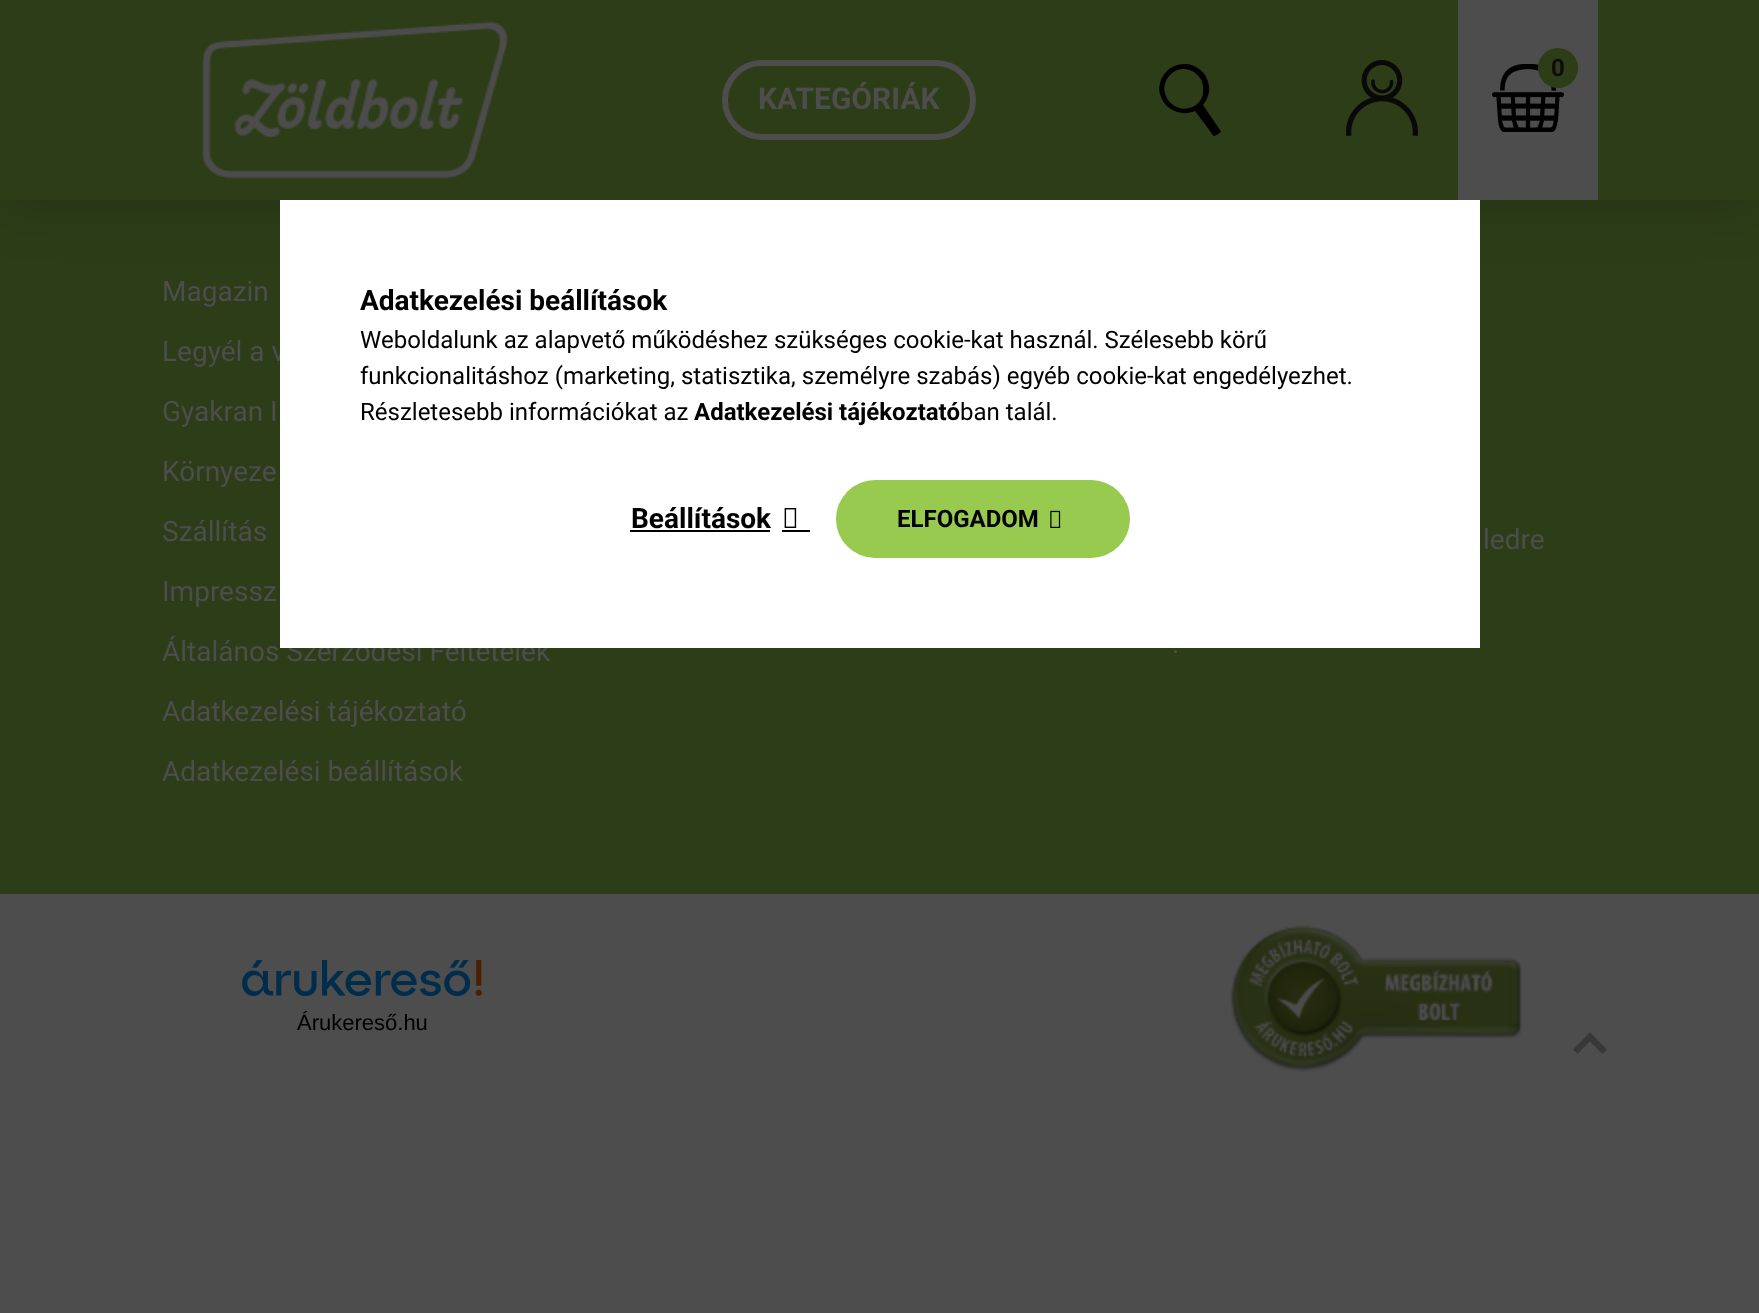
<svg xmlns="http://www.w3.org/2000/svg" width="1759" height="1313">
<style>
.a{font:bold 24px Roboto;fill:#0e0c0b}
.b{font:bold 30px Roboto;fill:#4d4d4d}
.c{font:28px Roboto;fill:#4d4d4d}
.d{font:bold 28px Roboto;fill:#000}
.e{font:24px Roboto;fill:#000}
.f{font:bold 24px Roboto;fill:#000}
.g{font:22px Liberation Sans;fill:#000}
</style>
<defs>
<linearGradient id="g1" gradientUnits="userSpaceOnUse" x1="836" y1="519" x2="1718" y2="519"><stop offset="0.33" stop-color="#97ca4f"/><stop offset="0.67" stop-color="#000"/></linearGradient>
</defs>
<rect width="100%" height="100%" fill="#4d4d4d"/>
<path fill="#2d3d18" d="M0 200h1759v694H0z"/>
<path fill="#00000033" filter="blur(30px)" d="M0 0h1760v200H0z"/>
<path fill="#2d3d18" d="M0 0h1759v200H0z"/>
<path fill="#000" d="M1220 130l-17-25c4-5 7-12 6-19c-3-24-34-30-46-10c-3 5-5 12-3 18c4 16 21 23 35 17l15 20c4 6 3 6 8 3c2-1 4-3 2-4zm-24-25c-21 14-44-15-24-32c14-11 34 2 31 19c0 5-3 10-7 13z"/>
<image href="1.png" x="1346" y="60" width="72" height="76"/>
<path fill="#4d4d4d" d="M1458 0h140v200H1458z"/>
<image href="2.png" x="1492" y="64" width="72" height="68"/>
<circle fill="#2d3d18" cx="1558" cy="68" r="20"/>
<image href="3.png" x="201" y="21" width="308" height="158"/>
<rect fill="none" stroke="#4d4d4d" stroke-width="6" x="725" y="63" width="248" height="74" rx="37"/>
<image href="6.png" x="242" y="960" width="240" height="36"/>
<image href="7.png" x="1230" y="925" width="292" height="147"/>
<path fill="#383838" d="M1602.5 1054l-17-17l4.5-4.5l17 17z"/>
<path fill="#383838" d="M1573 1049.5l17-17l4 4.5l-16.5 17z"/>
<text class="a" x="1551" y="76">0</text>
<text class="b" x="758" y="109">KATEGÓRIÁK</text>
<text class="c" x="162" y="301">Magazin</text>
<text class="c" x="162" y="361">Legyél a v</text>
<text class="c" x="162" y="421">Gyakran I</text>
<text class="c" x="162" y="481">Környeze</text>
<text class="c" x="162" y="541">Szállítás</text>
<text class="c" x="162" y="601">Impressz</text>
<text class="c" x="162" y="661">Általános Szerződési Feltételek</text>
<text class="c" x="162" y="721">Adatkezelési tájékoztató</text>
<text class="c" x="162" y="781">Adatkezelési beállítások</text>
<text class="c" x="1483" y="549">ledre</text>
<text class="c" x="1172" y="653">.</text>
<path fill="#fff" d="M280 200h1200v448H280z"/>
<text class="d" x="360" y="310">Adatkezelési beállítások</text>
<text class="e" x="360" y="348">Weboldalunk az alapvető működéshez szükséges cookie-kat használ. Szélesebb körű</text>
<text class="e" x="360" y="384">funkcionalitáshoz (marketing, statisztika, személyre szabás) egyéb cookie-kat engedélyezhet.</text>
<text class="e" x="360" y="420">Részletesebb információkat az</text>
<text class="f" x="694" y="420">Adatkezelési tájékoztató</text>
<text class="e" x="960" y="420">ban talál.</text>
<text class="d" x="631" y="528">Beállítások</text>
<path fill="#000" d="M630 530h140v2H630z"/>
<image href="4.png" x="784" y="508" width="13" height="20"/>
<path fill="#000" d="M782 530h28v2H782z"/>
<rect fill="url(#g1)" x="836" y="480" width="294" height="78" rx="39"/>
<text class="f" x="897" y="527">ELFOGADOM</text>
<image href="5.png" x="1050" y="510" width="11" height="18"/>
<text class="g" x="297" y="1030">Árukereső.hu</text>
</svg>
